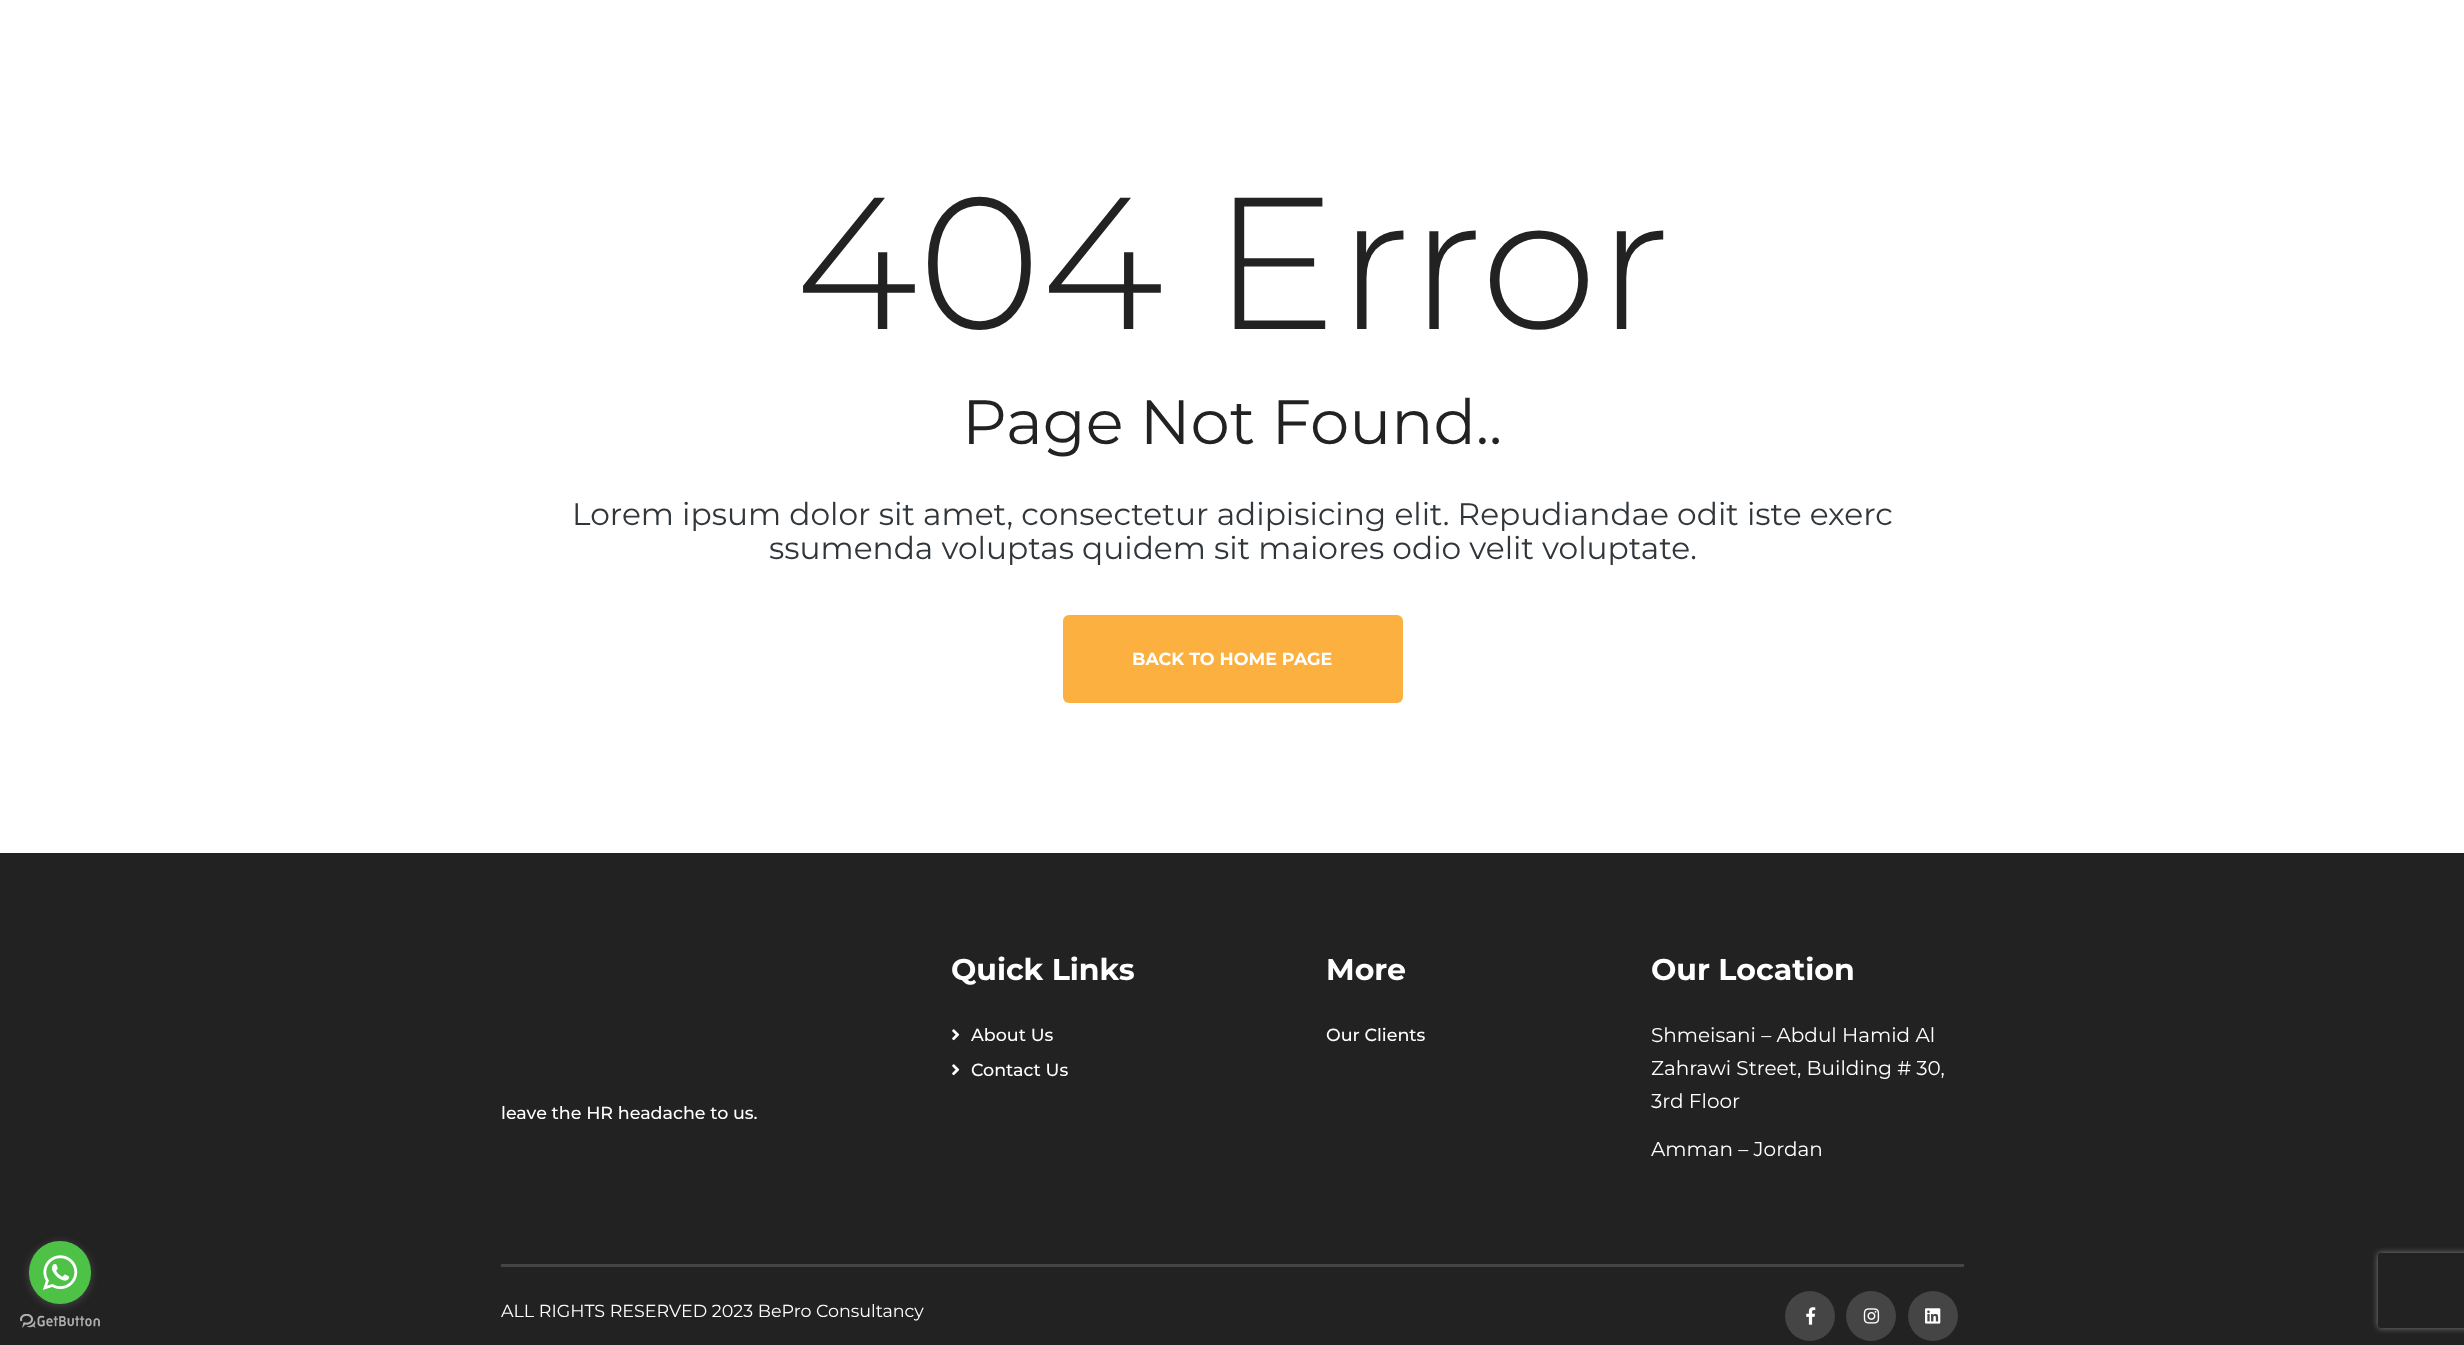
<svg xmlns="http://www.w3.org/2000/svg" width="2464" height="1345">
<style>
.a{font:300 187.5px Montserrat;fill:#222}
.b{font:62.5px Montserrat;fill:#222}
.c{font:31.25px Montserrat;fill:#31363b}
.d{font:bold 17.5px Montserrat;fill:#fff}
.e{font:bold 30px Montserrat;fill:#fff}
.f{font:500 17.5px Montserrat;fill:#fff}
.g{font:20px Montserrat;fill:#fff}
.h{font:17.5px Montserrat;fill:#fff}
</style>
<defs>
<clipPath id="clip1"><path d="M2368 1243h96v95h-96zm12.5 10h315c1.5 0 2.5 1 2.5 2.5v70c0 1.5-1 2.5-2.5 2.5h-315c-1.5 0-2.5-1-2.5-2.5v-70c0-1.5 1-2.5 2.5-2.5z" clip-rule="evenodd"/></clipPath>
</defs>
<rect width="100%" height="100%" fill="#fff"/>
<rect fill="#fbb040" x="1063" y="615" width="340" height="88" rx="6"/>
<path fill="#222" d="M0 853h2464v492H0z"/>
<image href="2.png" x="20" y="1314" width="80" height="14"/>
<rect fill="#88888866" filter="blur(4.5px)" x="29" y="1243" width="62" height="62" rx="31"/>
<rect fill="#4dc247" x="29" y="1241" width="62" height="63" rx="31"/>
<image href="1.png" x="42" y="1255" width="36" height="35"/>
<image href="3.png" x="952" y="1029" width="8" height="12"/>
<image href="3.png" x="952" y="1064" width="8" height="12"/>
<path fill="#454545" d="M501 1264h1463v3H501z"/>
<circle fill="#454545" cx="1810" cy="1316" r="25"/>
<image href="4.png" x="1806" y="1307" width="10" height="18"/>
<circle fill="#454545" cx="1871" cy="1316" r="25"/>
<image href="5.png" x="1863" y="1308" width="17" height="16"/>
<circle fill="#454545" cx="1933" cy="1316" r="25"/>
<image href="6.png" x="1925" y="1308" width="16" height="16"/>
<g clip-path="url(#clip1)">
<rect fill="#808080" filter="blur(3px)" x="2378" y="1253" width="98" height="75" rx="2.5"/>
</g>
<text class="a" x="795" y="329">404 Error</text>
<text class="b" x="962" y="444">Page Not Found..</text>
<text class="c" x="572" y="525">Lorem ipsum dolor sit amet, consectetur adipisicing elit. Repudiandae odit iste exerc</text>
<text class="c" x="769" y="559">ssumenda voluptas quidem sit maiores odio velit voluptate.</text>
<text class="d" x="1132" y="665">BACK TO HOME PAGE</text>
<text class="e" x="951" y="980">Quick Links</text>
<text class="f" x="971" y="1041">About Us</text>
<text class="f" x="971" y="1076">Contact Us</text>
<text class="e" x="1326" y="980">More</text>
<text class="f" x="1326" y="1041">Our Clients</text>
<text class="e" x="1651" y="980">Our Location</text>
<text class="g" x="1651" y="1042">Shmeisani – Abdul Hamid Al</text>
<text class="g" x="1651" y="1075">Zahrawi Street, Building # 30,</text>
<text class="g" x="1651" y="1108">3rd Floor</text>
<text class="g" x="1651" y="1156">Amman – Jordan</text>
<text class="f" x="501" y="1119">leave the HR headache to us.</text>
<text class="h" x="501" y="1317">ALL RIGHTS RESERVED 2023 BePro Consultancy</text>
</svg>
